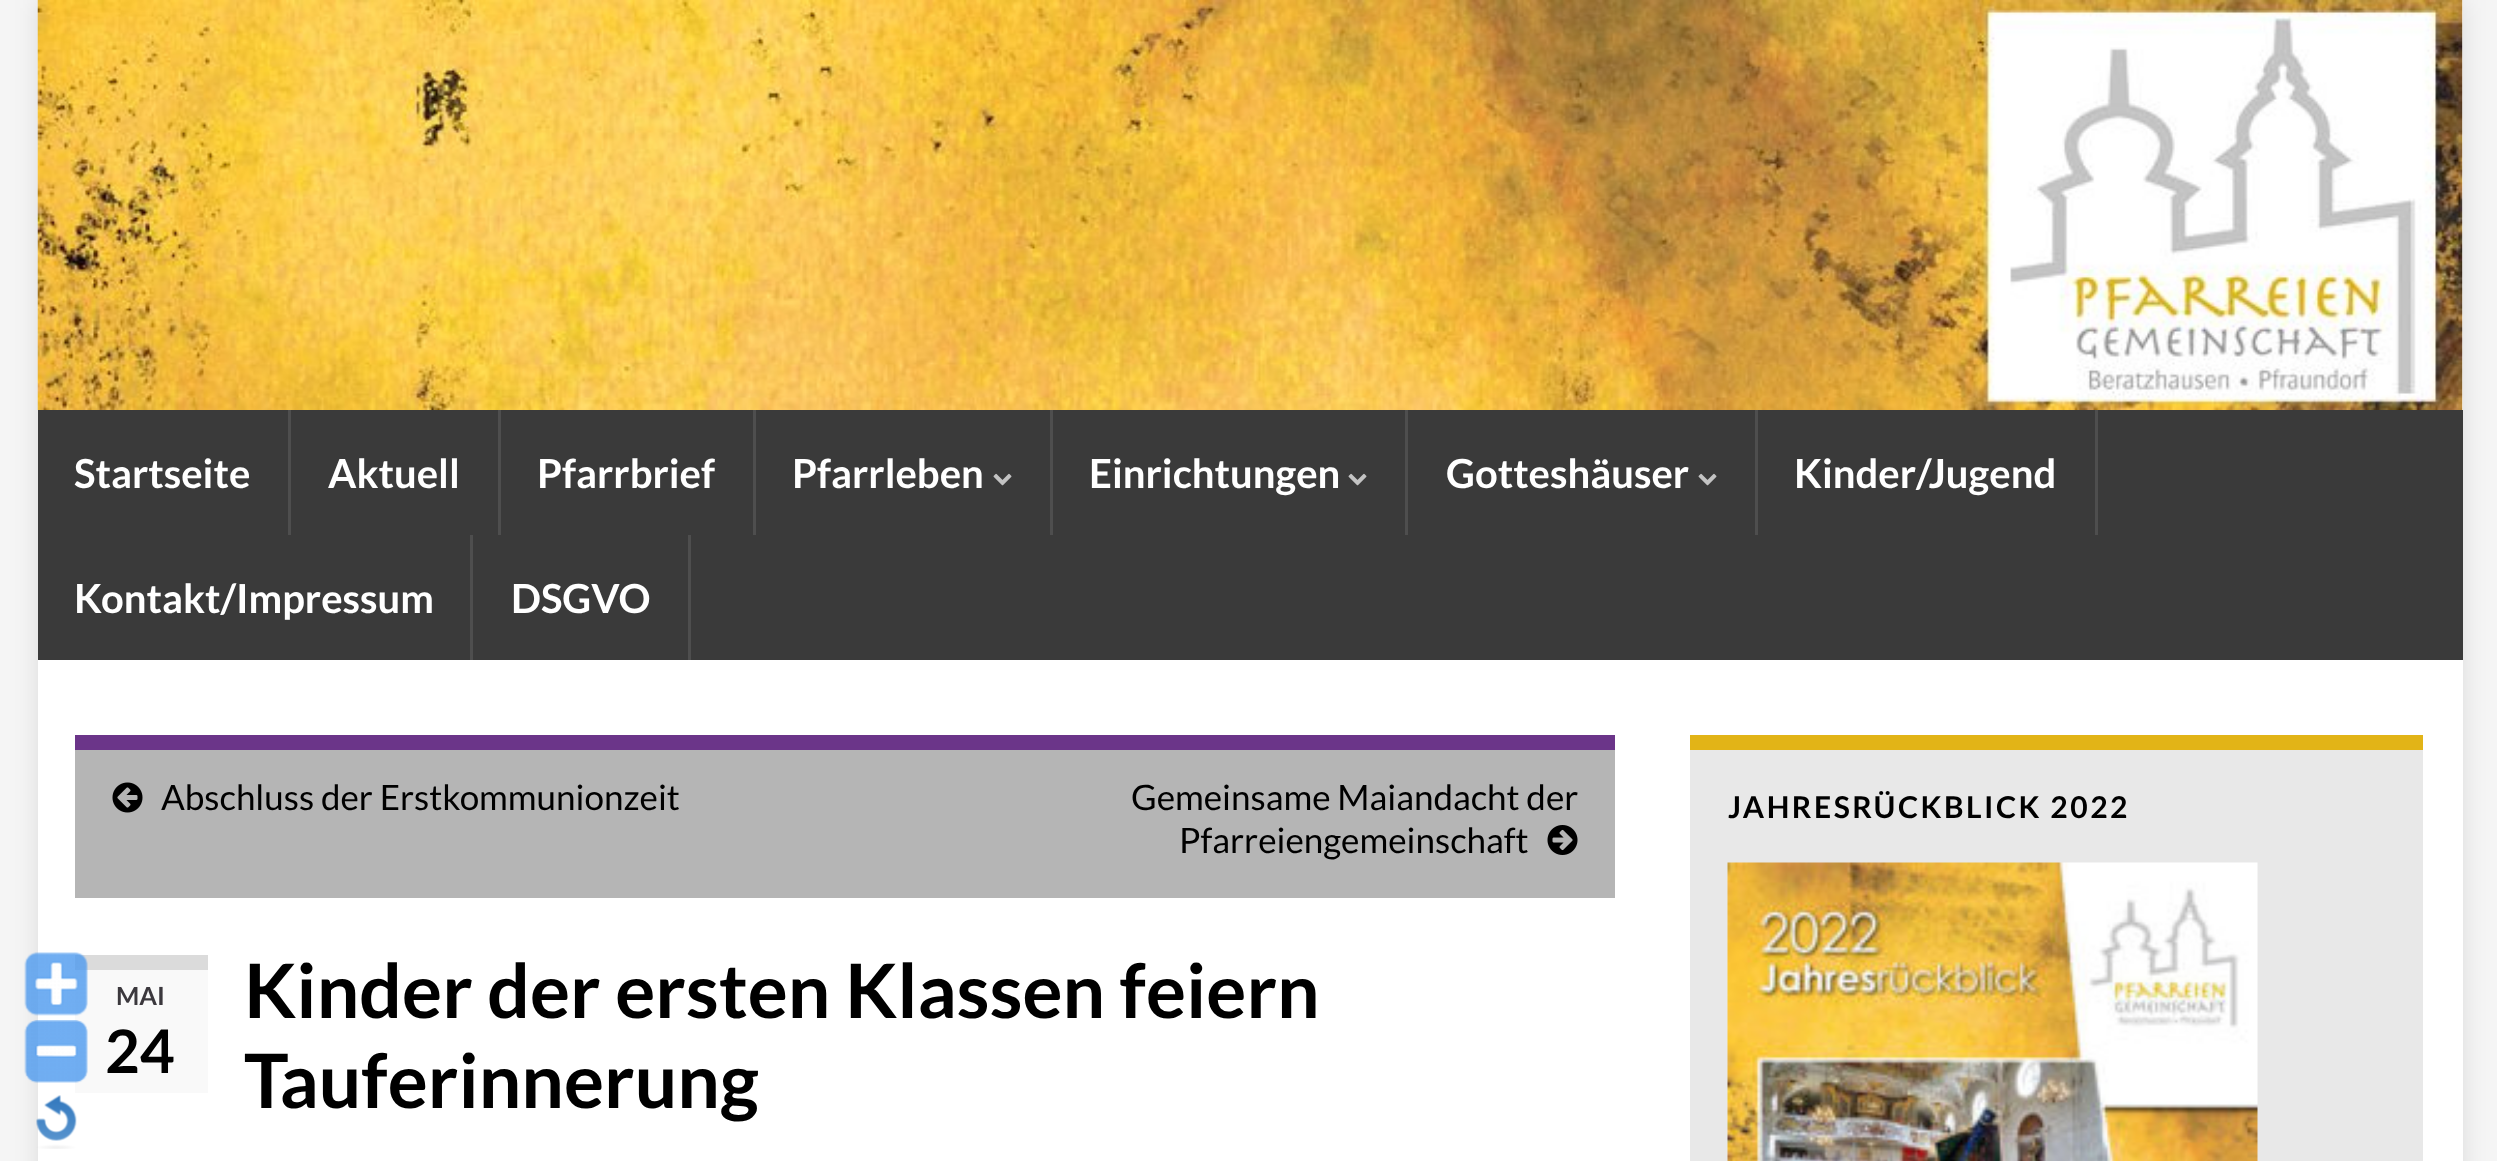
<svg xmlns="http://www.w3.org/2000/svg" width="2497" height="1161">
<style>
.a{font:bold 40px Lato;fill:#fff}
.b{font:35px Lato;fill:#000}
.c{font:bold 25px Lato;fill:#3b383d}
.d{font:bold 60px Lato;fill:#000}
.e{font:bold 75px Lato;fill:#000}
.f{font:bold 30px Lato;letter-spacing:2.5px;fill:#000}
</style>
<rect width="100%" height="100%" fill="#f5f5f5"/>
<path fill="#0000001a" filter="blur(12.5px)" d="M38 0h2425v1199H38z"/>
<path fill="#fff" d="M38 660h2425v501H38z"/>
<path fill="#f9f9f9" d="M75 970h133v123H75z"/>
<path fill="#dbdbdb" d="M75 955h133v15H75z"/>
<image href="1.png" x="24" y="952" width="64" height="64"/>
<image href="2.png" x="24" y="1020" width="64" height="63"/>
<image href="3.png" x="36" y="1095" width="41" height="54"/>
<path fill="#fff" d="M2462 0h1v410H2462z"/>
<image href="4.png" x="37" y="0" width="2426" height="410"/>
<path fill="#3a3a3a" d="M38 410h2425v250H38z"/>
<path fill="#4e4e4e" d="M288 410h3v125H288z"/>
<path fill="#4e4e4e" d="M498 410h3v125H498z"/>
<path fill="#4e4e4e" d="M753 410h3v125H753z"/>
<path fill="#4e4e4e" d="M1050 410h3v125H1050z"/>
<image href="5.png" x="993" y="473" width="19" height="13"/>
<path fill="#4e4e4e" d="M1405 410h3v125H1405z"/>
<image href="5.png" x="1348" y="473" width="19" height="13"/>
<path fill="#4e4e4e" d="M1755 410h3v125H1755z"/>
<image href="5.png" x="1698" y="473" width="19" height="13"/>
<path fill="#4e4e4e" d="M2095 410h3v125H2095z"/>
<path fill="#4e4e4e" d="M470 535h3v125H470z"/>
<path fill="#4e4e4e" d="M688 535h3v125H688z"/>
<path fill="#b5b5b5" d="M75 750h1540v148H75z"/>
<path fill="#6b3589" d="M75 735h1540v15H75z"/>
<image href="6.png" x="112" y="782" width="31" height="31"/>
<image href="7.png" x="1547" y="825" width="31" height="30"/>
<path fill="#e8e8e8" d="M1690 750h733v411H1690z"/>
<path fill="#e2b417" d="M1690 735h733v15H1690z"/>
<image href="8.png" x="1727" y="862" width="531" height="299"/>
<text class="a" x="74" y="488">Startseite</text>
<text class="a" x="328" y="488">Aktuell</text>
<text class="a" x="537" y="488">Pfarrbrief</text>
<text class="a" x="792" y="488">Pfarrleben</text>
<text class="a" x="1089" y="488">Einrichtungen</text>
<text class="a" x="1446" y="488">Gotteshäuser</text>
<text class="a" x="1794" y="488">Kinder/Jugend</text>
<text class="a" x="74" y="613">Kontakt/Impressum</text>
<text class="a" x="511" y="613">DSGVO</text>
<text class="b" x="161" y="810">Abschluss der Erstkommunionzeit</text>
<text class="b" x="1131" y="810">Gemeinsame Maiandacht der</text>
<text class="b" x="1179" y="853">Pfarreiengemeinschaft</text>
<text class="c" x="116" y="1005">MAI</text>
<text class="d" x="105" y="1073">24</text>
<text class="e" x="244" y="1018">Kinder der ersten Klassen feiern</text>
<text class="e" x="244" y="1108">Tauferinnerung</text>
<text class="f" x="1728" y="818">JAHRESRÜCKBLICK 2022</text>
</svg>
